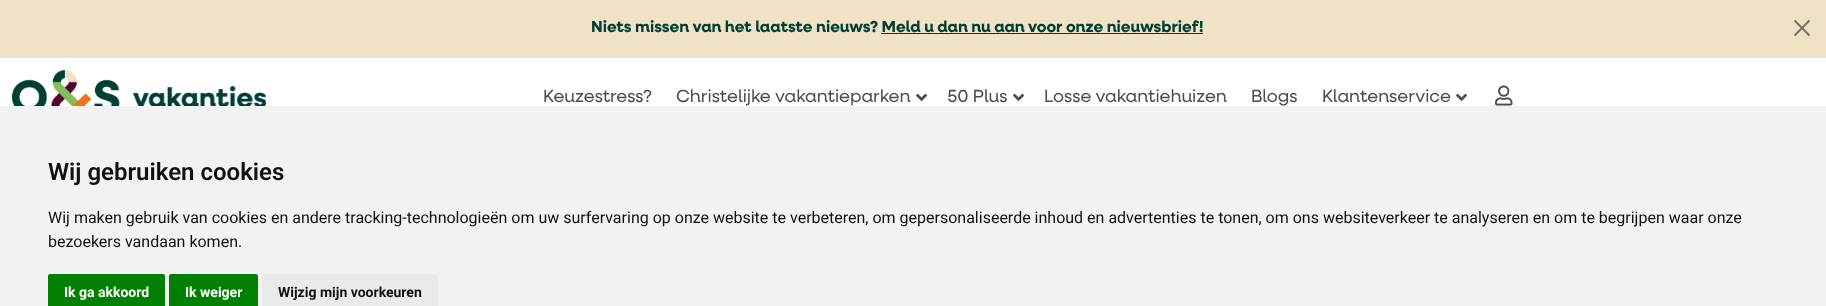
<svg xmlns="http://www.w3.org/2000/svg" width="1826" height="306">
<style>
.a{font:bold 16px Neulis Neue;fill:#003f35}
.b{font:17.6px Neulis Neue;fill:#4d4d4d}
.c{font:600 24px Roboto;fill:#111}
.d{font:16px Roboto;fill:#111}
.e{font:bold 14px Roboto;fill:#fff}
.f{font:bold 14px Roboto;fill:#111}
</style>
<rect width="100%" height="100%" fill="#fff"/>
<path fill="#f0e2c5" d="M0 0h1826v58H0z"/>
<path fill="#003f35" d="M881 33h322v1H881z"/>
<image href="1.png" x="1794" y="20" width="16" height="16"/>
<image href="2.png" x="12" y="70" width="254" height="36"/>
<image href="3.png" x="916" y="93" width="11" height="8"/>
<image href="3.png" x="1013" y="93" width="11" height="8"/>
<image href="3.png" x="1456" y="93" width="11" height="8"/>
<image href="4.png" x="1495" y="85" width="18" height="21"/>
<path fill="#f2f2f2" d="M0 106h1826v200H0z"/>
<path fill="#008000" d="M50 274h113c1 0 2 1 2 2v30h-117v-30c0-1 1-2 2-2z"/>
<path fill="#008000" d="M171 274h85c1 0 2 1 2 2v30h-89v-30c0-1 1-2 2-2z"/>
<path fill="#eaeaea" d="M264 274h172c1 0 2 1 2 2v30h-176v-30c0-1 1-2 2-2z"/>
<text class="a" x="591" y="32">Niets missen van het laatste nieuws? Meld u dan nu aan voor onze nieuwsbrief!</text>
<text class="b" x="543" y="102">Keuzestress?</text>
<text class="b" x="676" y="102">Christelijke vakantieparken</text>
<text class="b" x="947" y="102">50 Plus</text>
<text class="b" x="1044" y="102">Losse vakantiehuizen</text>
<text class="b" x="1251" y="102">Blogs</text>
<text class="b" x="1322" y="102">Klantenservice</text>
<text class="c" x="48" y="180">Wij gebruiken cookies</text>
<text class="d" x="48" y="223">Wij maken gebruik van cookies en andere tracking-technologieën om uw surfervaring op onze website te verbeteren, om gepersonaliseerde inhoud en advertenties te tonen, om ons websiteverkeer te analyseren en om te begrijpen waar onze</text>
<text class="d" x="48" y="247">bezoekers vandaan komen.</text>
<text class="e" x="64" y="297">Ik ga akkoord</text>
<text class="e" x="185" y="297">Ik weiger</text>
<text class="f" x="278" y="297">Wijzig mijn voorkeuren</text>
</svg>
